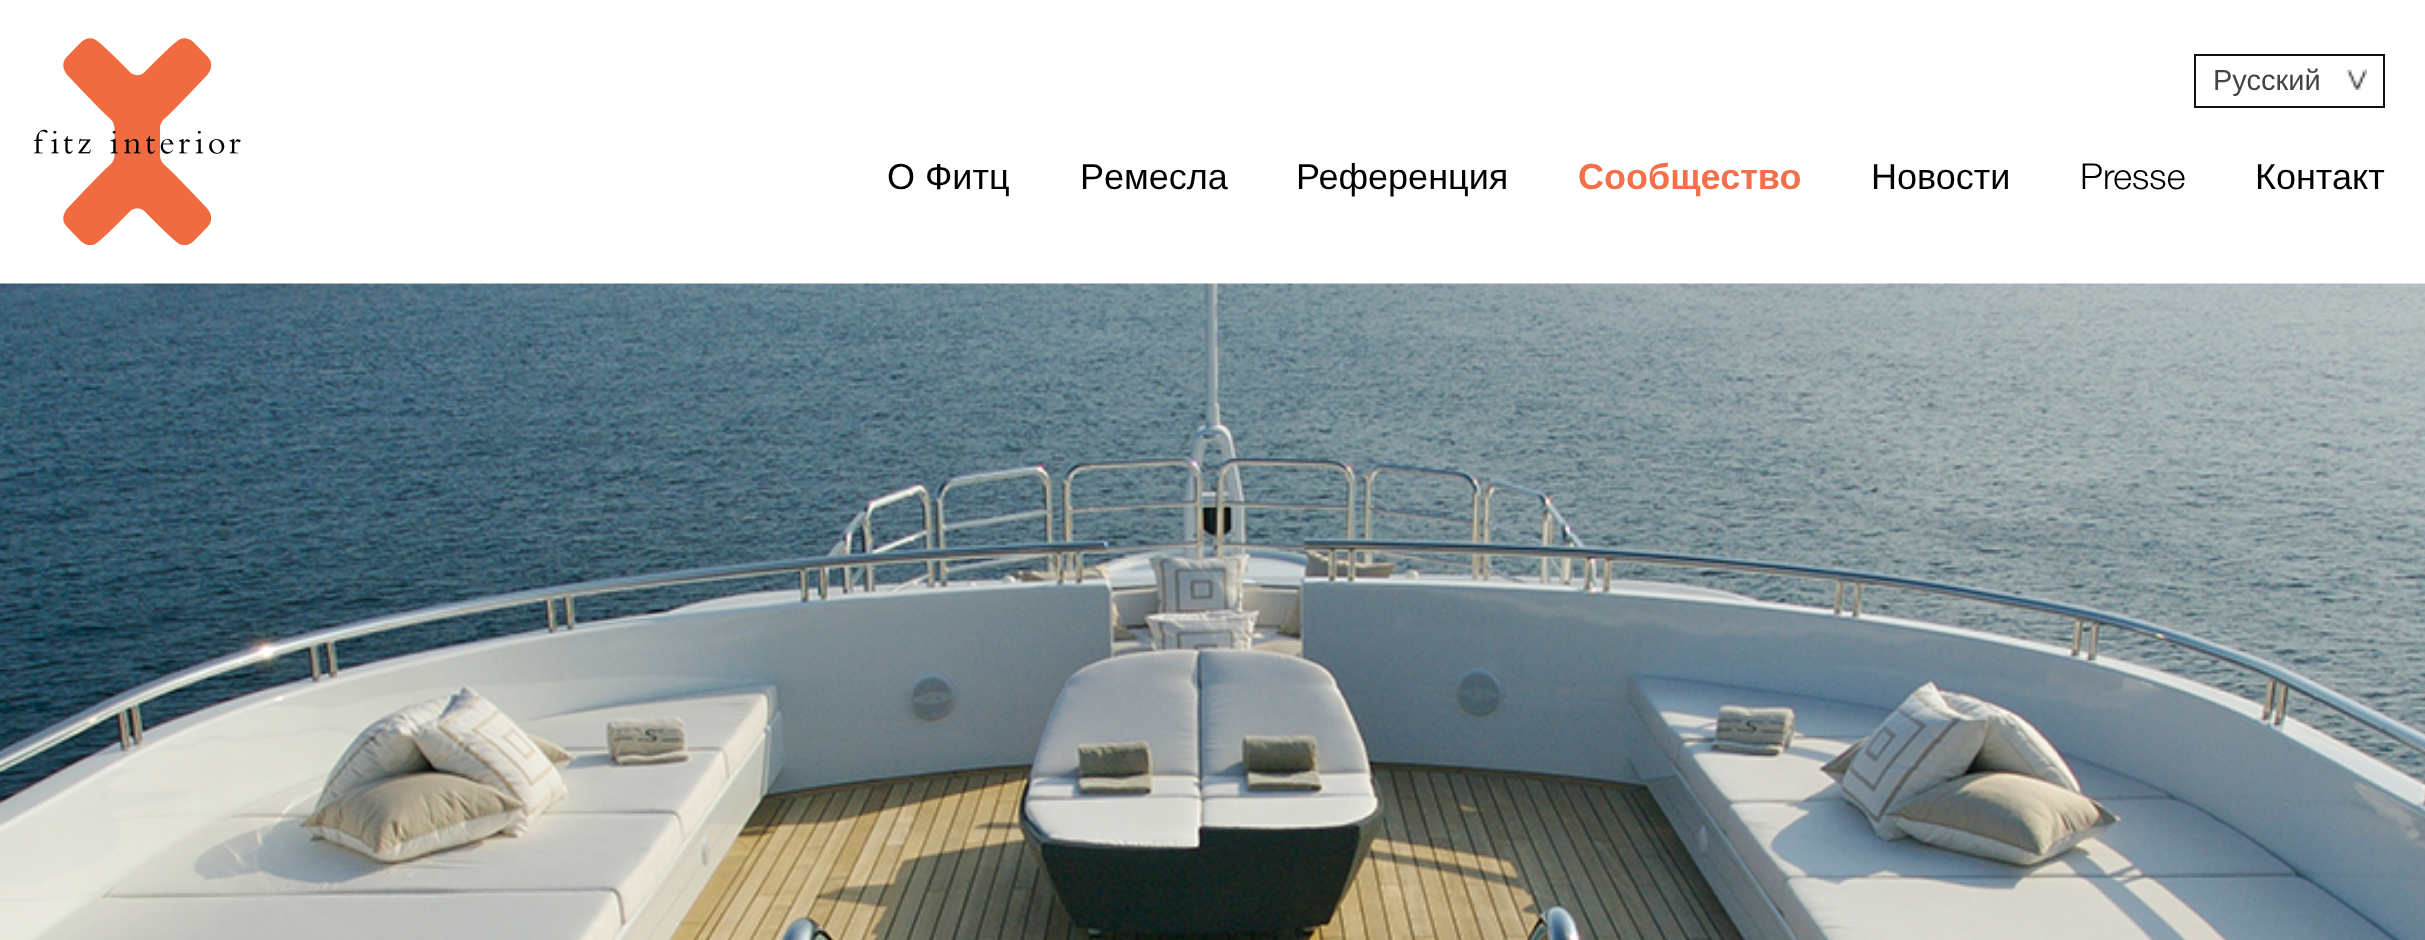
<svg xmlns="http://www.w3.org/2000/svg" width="2425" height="940">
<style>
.a{font:29px Liberation Sans;fill:#444}
.b{font:36px Liberation Sans;fill:#000}
.c{font:bold 36px Liberation Sans;fill:#f3704a}
.d{font:300 36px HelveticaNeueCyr;fill:#000}
</style>
<rect width="100%" height="100%" fill="#fff"/>
<image href="1.png" x="34" y="38" width="207" height="207"/>
<path fill="none" stroke="#101010" stroke-width="2" d="M2195 55h189v52H2195z"/>
<image href="2.png" x="2346" y="69" width="21" height="21"/>
<image href="3.png" x="0" y="283" width="2425" height="657"/>
<text class="a" x="2213" y="90">Русский</text>
<text class="b" x="887" y="189">О Фитц</text>
<text class="b" x="1080" y="189">Pемесла</text>
<text class="b" x="1296" y="189">Референция</text>
<text class="c" x="1578" y="189">Сообщество</text>
<text class="b" x="1871" y="189">Новости</text>
<text class="d" x="2080" y="189">Presse</text>
<text class="b" x="2255" y="189">Контакт</text>
</svg>
